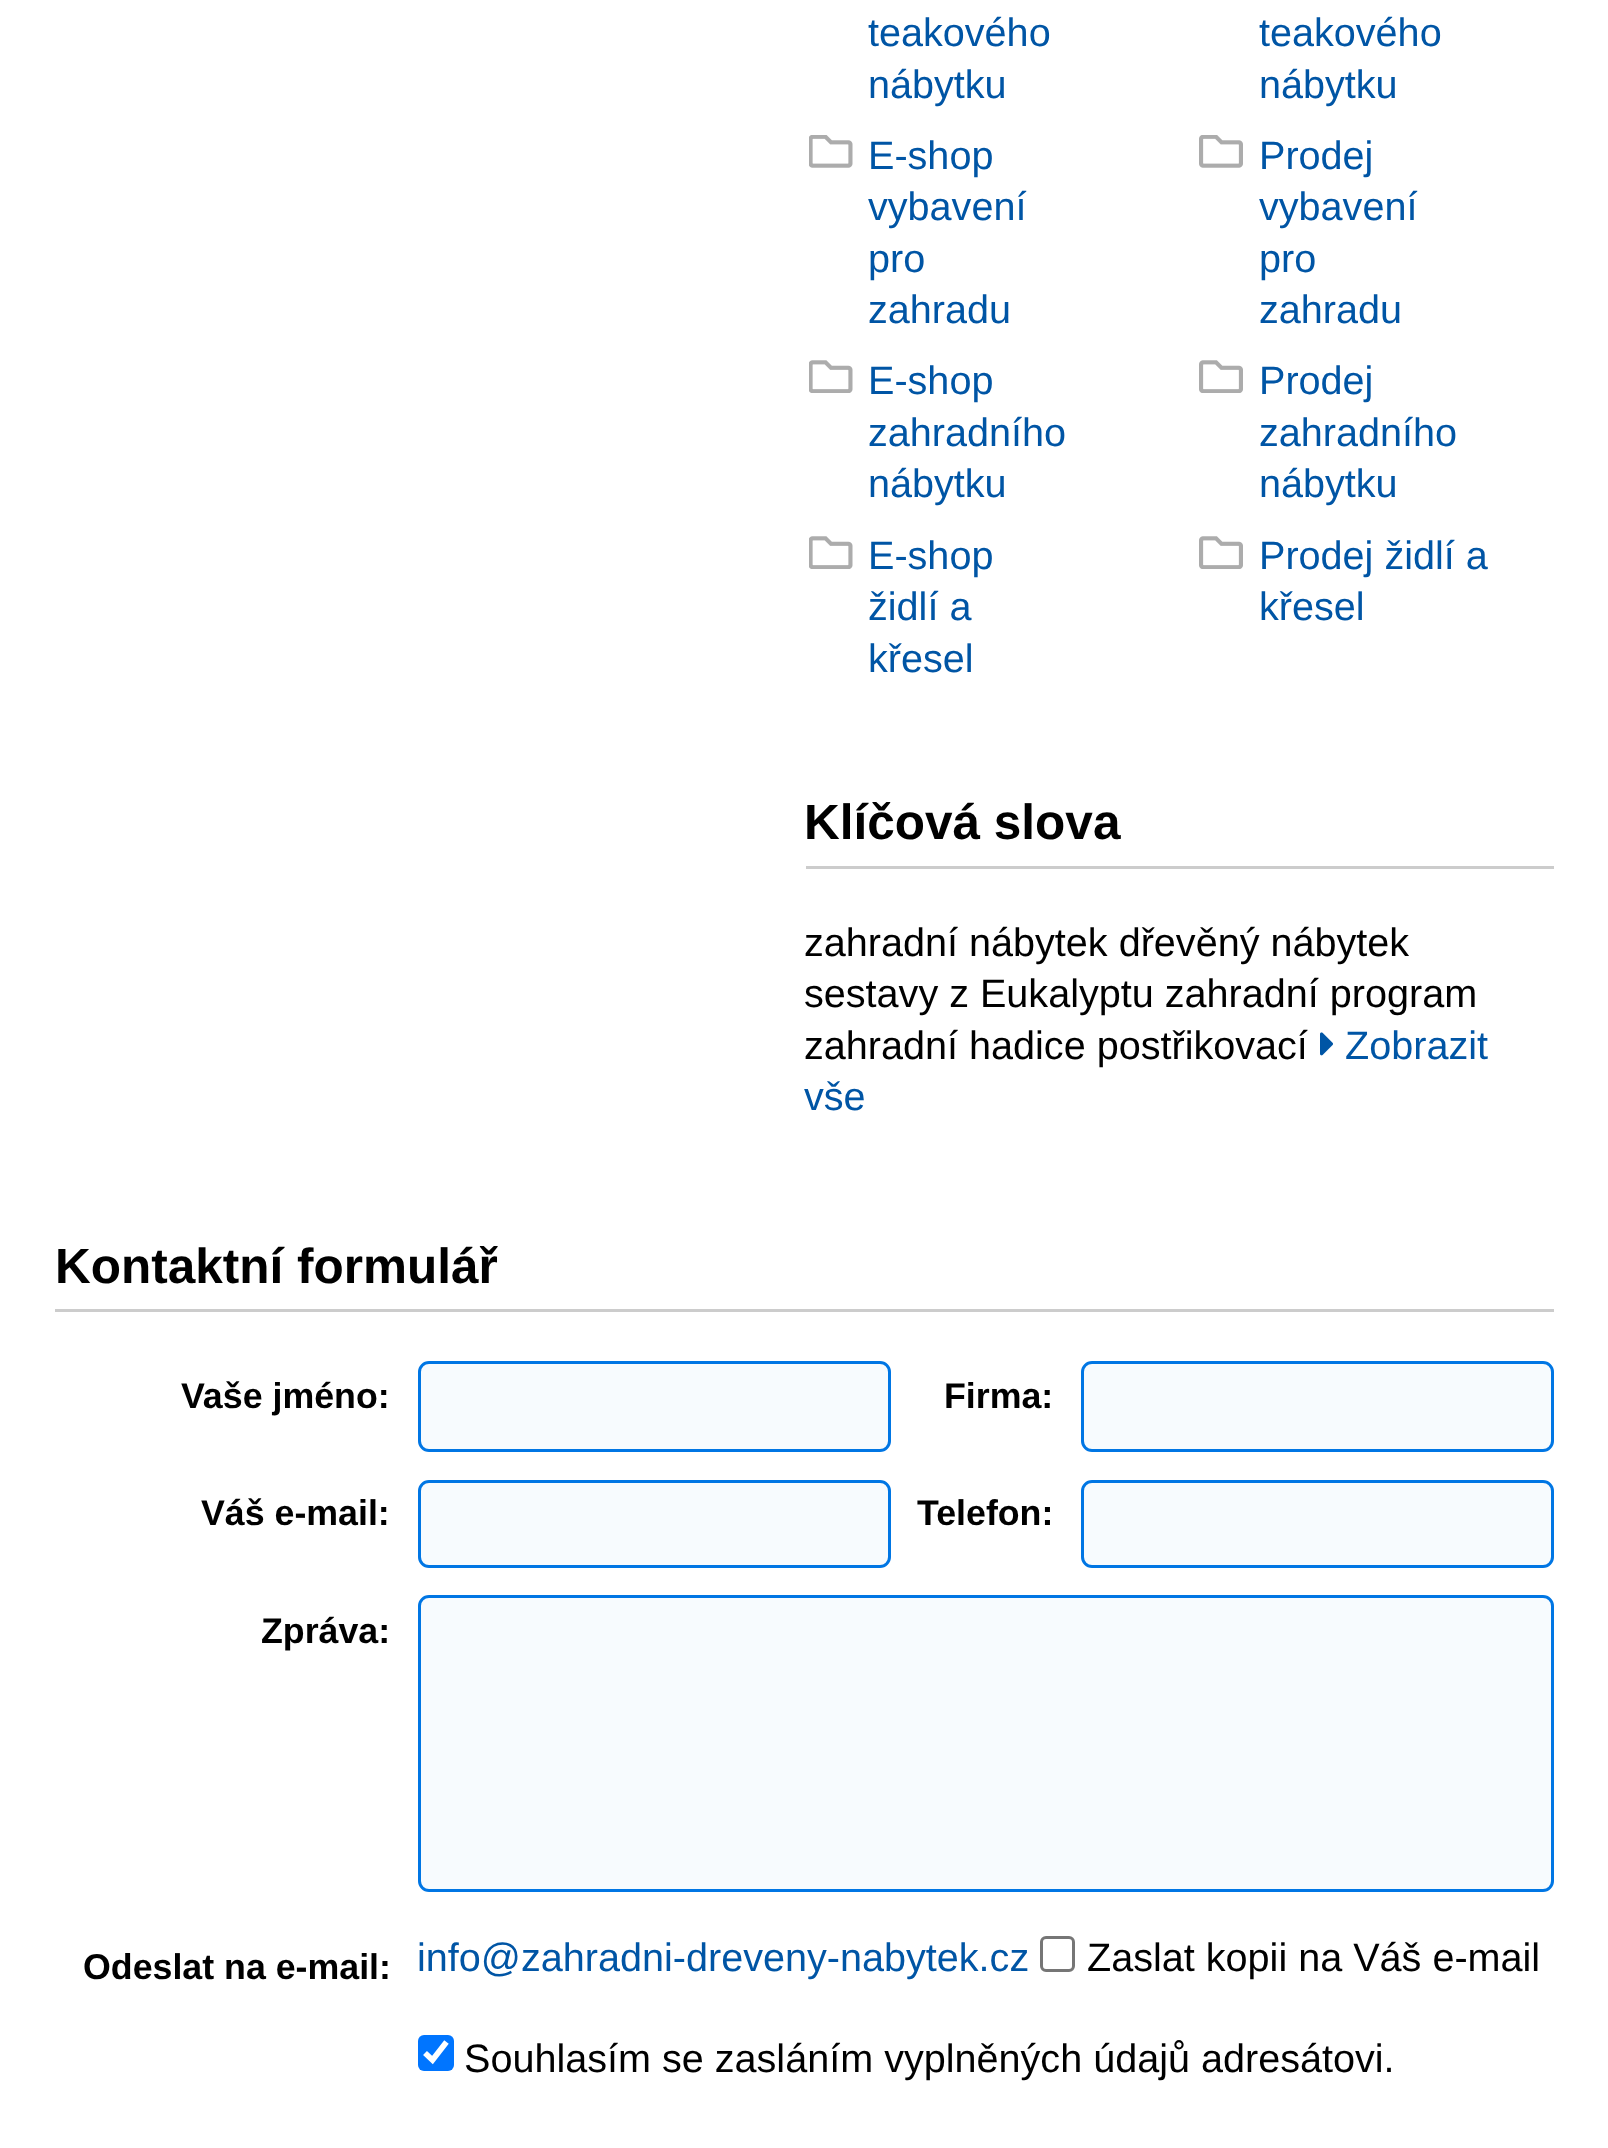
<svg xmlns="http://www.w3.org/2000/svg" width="1608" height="2148">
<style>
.a{font:39.6px Liberation Sans;fill:#0055a5}
.b{font:bold 49.5px Liberation Sans;fill:#000}
.c{font:39.6px Liberation Sans;fill:#000}
.d{font:bold 35.75px Liberation Sans;fill:#000}
</style>
<rect width="100%" height="100%" fill="#fff"/>
<image href="1.png" x="809" y="135" width="44" height="33"/>
<image href="2.png" x="1199" y="135" width="44" height="33"/>
<image href="3.png" x="809" y="360" width="44" height="33"/>
<image href="4.png" x="1199" y="360" width="44" height="33"/>
<image href="3.png" x="809" y="536" width="44" height="33"/>
<image href="4.png" x="1199" y="536" width="44" height="33"/>
<path fill="#ccc" d="M806 866h748v3H806z"/>
<image href="5.png" x="1320" y="1032" width="13" height="24"/>
<path fill="#ccc" d="M55 1309h1499v3H55z"/>
<rect fill="#f7fbfe" stroke="#0076e4" stroke-width="3" x="419.5" y="1362.5" width="470" height="88" rx="9.5"/>
<rect fill="#f7fbfe" stroke="#0076e4" stroke-width="3" x="1082.5" y="1362.5" width="470" height="88" rx="9.5"/>
<rect fill="#f7fbfe" stroke="#0076e4" stroke-width="3" x="419.5" y="1481.5" width="470" height="85" rx="9.5"/>
<rect fill="#f7fbfe" stroke="#0076e4" stroke-width="3" x="1082.5" y="1481.5" width="470" height="85" rx="9.5"/>
<rect fill="#f7fbfe" stroke="#0076e4" stroke-width="3" x="419.5" y="1596.5" width="1133" height="294" rx="9.5"/>
<rect fill="none" stroke="#767676" stroke-width="3" x="1041.5" y="1937.5" width="32" height="33" rx="4.5"/>
<rect fill="#0075ff" x="418" y="2035" width="36" height="36" rx="6"/>
<path fill="none" stroke="#fff" stroke-width="5.7" d="M425 2053l7.5 7l14-18"/>
<text class="a" x="868" y="46">teakového</text>
<text class="a" x="868" y="98">nábytku</text>
<text class="a" x="1259" y="46">teakového</text>
<text class="a" x="1259" y="98">nábytku</text>
<text class="a" x="868" y="169">E-shop</text>
<text class="a" x="868" y="220">vybavení</text>
<text class="a" x="868" y="272">pro</text>
<text class="a" x="868" y="323">zahradu</text>
<text class="a" x="1259" y="169">Prodej</text>
<text class="a" x="1259" y="220">vybavení</text>
<text class="a" x="1259" y="272">pro</text>
<text class="a" x="1259" y="323">zahradu</text>
<text class="a" x="868" y="394">E-shop</text>
<text class="a" x="868" y="446">zahradního</text>
<text class="a" x="868" y="497">nábytku</text>
<text class="a" x="1259" y="394">Prodej</text>
<text class="a" x="1259" y="446">zahradního</text>
<text class="a" x="1259" y="497">nábytku</text>
<text class="a" x="868" y="569">E-shop</text>
<text class="a" x="868" y="620">židlí a</text>
<text class="a" x="868" y="672">křesel</text>
<text class="a" x="1259" y="569">Prodej židlí a</text>
<text class="a" x="1259" y="620">křesel</text>
<text class="b" x="804" y="839">Klíčová slova</text>
<text class="c" x="804" y="956">zahradní nábytek dřevěný nábytek</text>
<text class="c" x="804" y="1007">sestavy z Eukalyptu zahradní program</text>
<text class="c" x="804" y="1059">zahradní hadice postřikovací</text>
<text class="a" x="1345" y="1059">Zobrazit</text>
<text class="a" x="804" y="1110">vše</text>
<text class="b" x="55" y="1283">Kontaktní formulář</text>
<text class="d" x="181" y="1408">Vaše jméno:</text>
<text class="d" x="944" y="1408">Firma:</text>
<text class="d" x="201" y="1525">Váš e-mail:</text>
<text class="d" x="917" y="1525">Telefon:</text>
<text class="d" x="261" y="1643">Zpráva:</text>
<text class="d" x="83" y="1979">Odeslat na e-mail:</text>
<text class="a" x="417" y="1971">info@zahradni-dreveny-nabytek.cz</text>
<text class="c" x="1087" y="1971">Zaslat kopii na Váš e-mail</text>
<text class="c" x="464" y="2072">Souhlasím se zasláním vyplněných údajů adresátovi.</text>
</svg>
